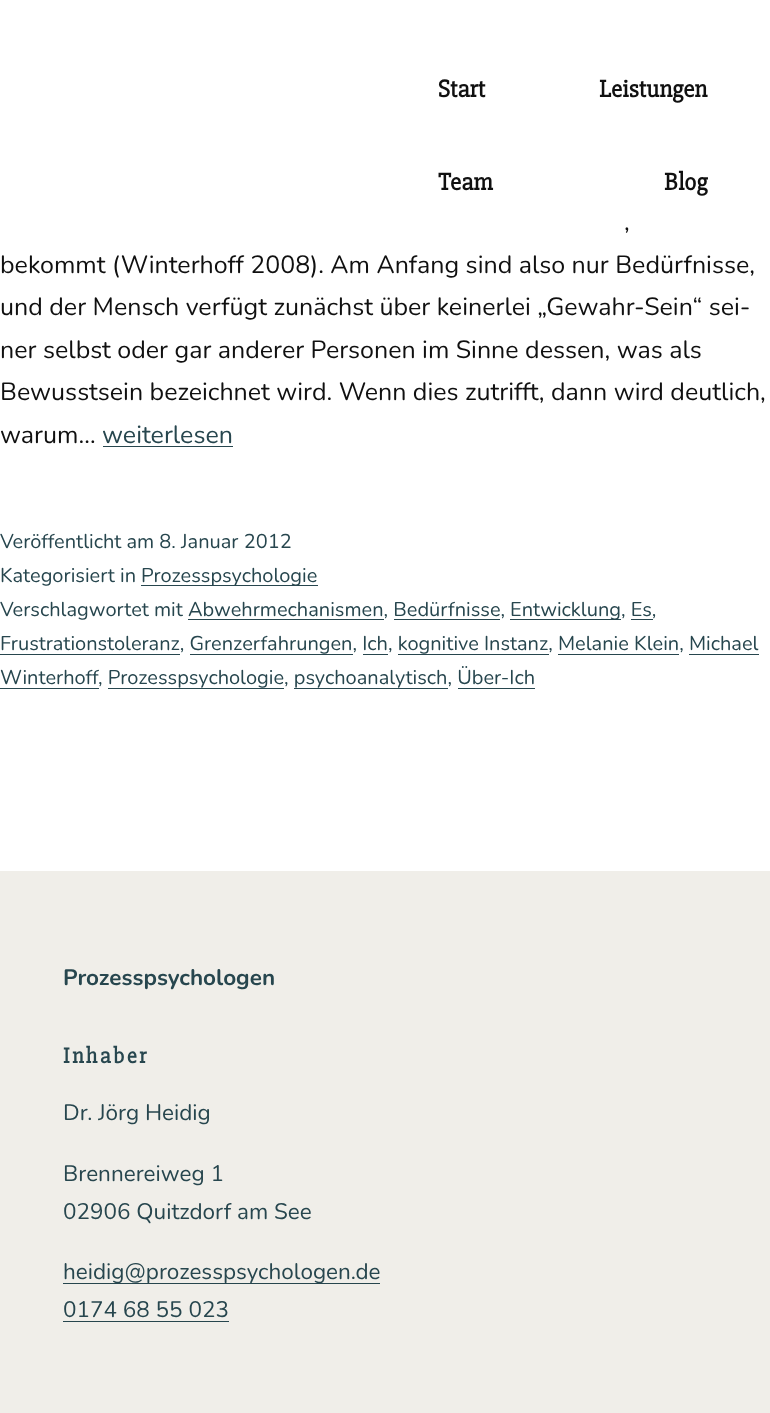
<svg xmlns="http://www.w3.org/2000/svg" width="770" height="1413">
<style>
.a{font:bold 25px 'Slabo 27px';fill:#101010}
.b{font:25px Nunito;fill:#101010}
.c{font:25px Nunito;fill:#27464e}
.d{font:20px Nunito;fill:#27464e}
.e{font:bold 22.5px Nunito;fill:#27464e}
.f{font:bold 22.5px 'Slabo 27px';letter-spacing:2.25px;fill:#27464e}
.g{font:22.5px Nunito;fill:#27464e}
</style>
<rect width="100%" height="100%" fill="#fff"/>
<path fill="#27464e" d="M103 446h130v1H103z"/>
<path fill="#27464e" d="M141 585h177v1H141z"/>
<path fill="#27464e" d="M510 619h111v1H510z"/>
<path fill="#27464e" d="M188 619h196v1H188z"/>
<path fill="#27464e" d="M394 619h106v1H394z"/>
<path fill="#27464e" d="M631 619h22v1H631z"/>
<path fill="#27464e" d="M0 654h180v1H0z"/>
<path fill="#27464e" d="M190 654h163v1H190z"/>
<path fill="#27464e" d="M363 654h25v1H363z"/>
<path fill="#27464e" d="M398 654h151v1H398z"/>
<path fill="#27464e" d="M558 654h121v1H558z"/>
<path fill="#27464e" d="M689 654h70v1H689z"/>
<path fill="#27464e" d="M0 688h99v1H0z"/>
<path fill="#27464e" d="M108 688h176v1H108z"/>
<path fill="#27464e" d="M294 688h154v1H294z"/>
<path fill="#27464e" d="M458 688h77v1H458z"/>
<path fill="#f0eee9" d="M0 871h770v542H0z"/>
<path fill="#27464e" d="M63 1283h317v1H63z"/>
<path fill="#27464e" d="M63 1321h166v1H63z"/>
<text class="a" x="438" y="97">Start</text>
<text class="a" x="599" y="97">Leistungen</text>
<text class="a" x="438" y="190">Team</text>
<text class="a" x="664" y="190">Blog</text>
<text class="b" x="624" y="230">,</text>
<text class="b" x="0" y="273">bekommt (Winterhoff 2008). Am Anfang sind also nur Bedürfnisse,</text>
<text class="b" x="0" y="315">und der Mensch verfügt zunächst über keinerlei „Gewahr-Sein“ sei-</text>
<text class="b" x="0" y="358">ner selbst oder gar anderer Personen im Sinne dessen, was als</text>
<text class="b" x="0" y="400">Bewusstsein bezeichnet wird. Wenn dies zutrifft, dann wird deutlich,</text>
<text class="b" x="0" y="443">warum…</text>
<text class="c" x="102" y="443">weiterlesen</text>
<text class="d" x="0" y="548">Veröffentlicht am 8. Januar 2012</text>
<text class="d" x="0" y="582">Kategorisiert in</text>
<text class="d" x="141" y="582">Prozesspsychologie</text>
<text class="d" x="0" y="616">Verschlagwortet mit Abwehrmechanismen, Bedürfnisse,</text>
<text class="d" x="510" y="616">Entwicklung, Es,</text>
<text class="d" x="0" y="650">Frustrationstoleranz, Grenzerfahrungen, Ich, kognitive Instanz, Melanie Klein, Michael</text>
<text class="d" x="0" y="684">Winterhoff</text>
<text class="d" x="98" y="684">, Prozesspsychologie, psychoanalytisch, Über-Ich</text>
<text class="e" x="63" y="985">Prozesspsychologen</text>
<text class="f" x="63" y="1063">Inhaber</text>
<text class="g" x="63" y="1120">Dr. Jörg Heidig</text>
<text class="g" x="63" y="1181">Brennereiweg 1</text>
<text class="g" x="63" y="1219">02906 Quitzdorf am See</text>
<text class="g" x="63" y="1279">heidig@prozesspsychologen.de</text>
<text class="g" x="63" y="1317">0174 68 55 023</text>
</svg>
